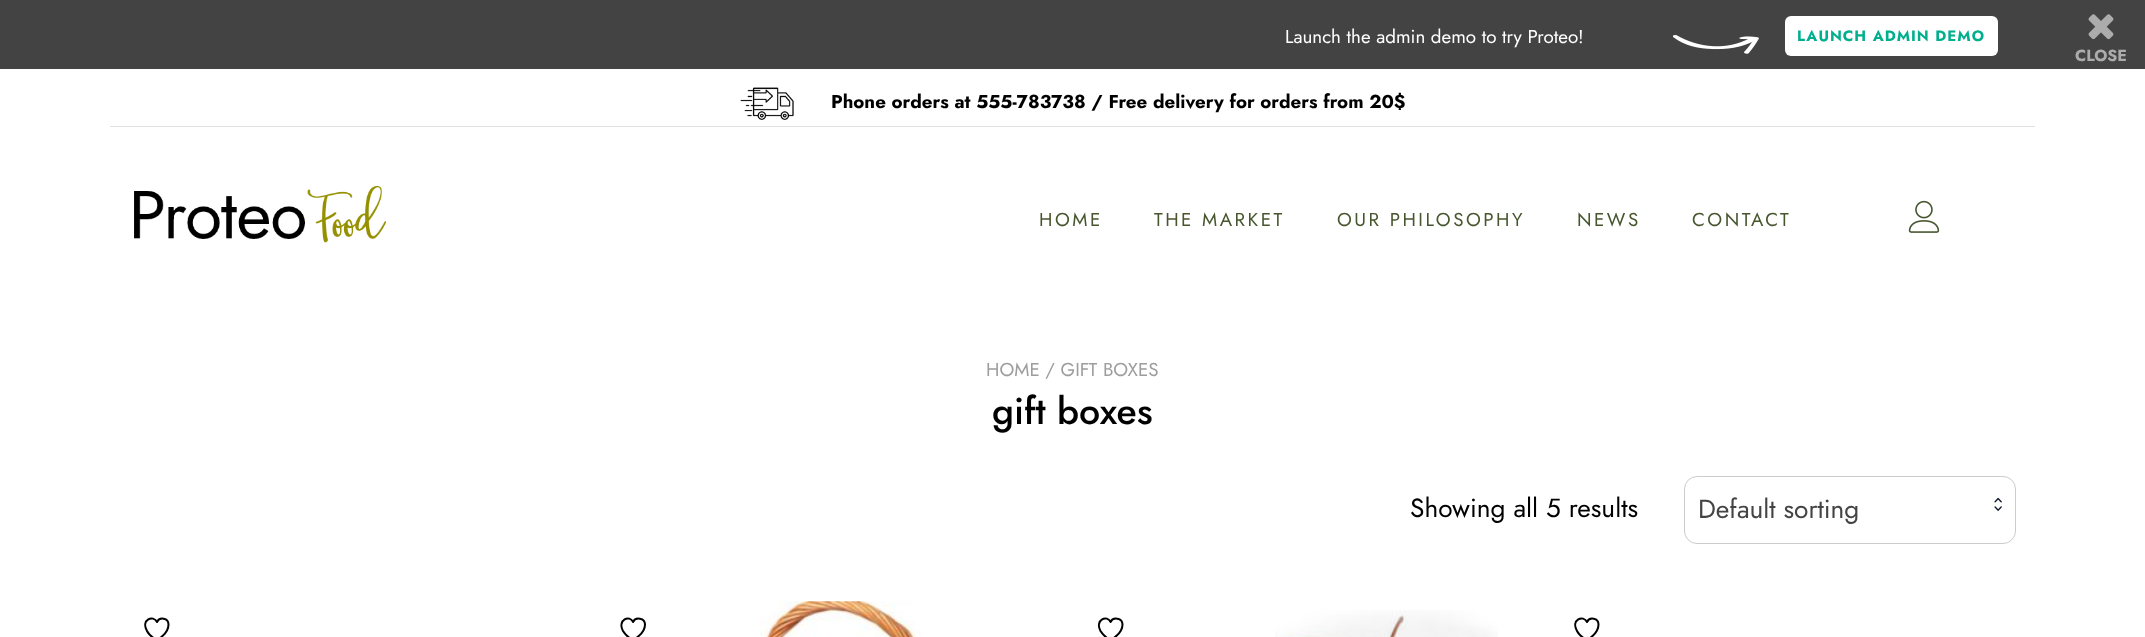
<svg xmlns="http://www.w3.org/2000/svg" width="2145" height="637">
<style>
.a{font:18.75px Jost;fill:#fff}
.b{font:bold 15px Jost;letter-spacing:1px;fill:#01af8d}
.c{font:bold 16px Jost;fill:#acacac}
.d{font:bold 18.75px Jost;fill:#000}
.e{font:18.75px Jost;letter-spacing:2.5px;fill:#47562f}
.f{font:18.75px Jost;fill:#9d9d9d}
.g{font:500 37.5px Jost;fill:#000}
.h{font:26.25px Jost;fill:#000}
.i{font:26.25px Jost;fill:#444}
</style>
<rect width="100%" height="100%" fill="#fff"/>
<path fill="#434343" d="M0 0h2145v69H0z"/>
<image href="1.png" x="1673" y="35" width="86" height="19"/>
<rect fill="#fff" x="1785" y="16" width="213" height="40" rx="6"/>
<image href="2.png" x="2088" y="14" width="26" height="26"/>
<path fill="#e0e0e0" d="M110 126h1925v1H110z"/>
<image href="3.png" x="740" y="87" width="54" height="33"/>
<image href="4.png" x="134" y="185" width="252" height="58"/>
<image href="5.png" x="1908" y="200" width="32" height="33"/>
<rect fill="none" stroke="#ccc" x="1684.5" y="476.5" width="331" height="67" rx="12.5"/>
<image href="6.png" x="1994" y="497" width="8" height="14"/>
<path fill="none" stroke="#000" stroke-width="2" stroke-linecap="round" stroke-linejoin="round" d="M168.5 624.5c0-6.5-9-8-11.5-2.5c-3.5-7.5-16.5-2.5-10 9c2 4 6 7 10 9c0 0 11.5-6 11.5-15.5z"/>
<path fill="none" stroke="#000" stroke-width="2" stroke-linecap="round" stroke-linejoin="round" d="M645 624.5c0-6.5-9.5-8-12-2.5c-3-7.5-16-2.5-10 9c2.5 4 6 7 10 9c0 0 12-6 12-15.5z"/>
<image href="7.png" x="760" y="601" width="161" height="36"/>
<path fill="none" stroke="#000" stroke-width="2" stroke-linecap="round" stroke-linejoin="round" d="M1122.5 624.5c0-6.5-9.5-8-12-2.5c-3-7.5-16-2.5-10 9c2.5 4 6 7 10 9c0 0 12-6 12-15.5z"/>
<image href="8.png" x="1275" y="610" width="223" height="27"/>
<path fill="none" stroke="#000" stroke-width="2" stroke-linecap="round" stroke-linejoin="round" d="M1598.5 624.5c0-6.5-9-8-11.5-2.5c-3.5-7.5-16.5-2.5-10 9c2 4 6 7 10 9c0 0 11.5-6 11.5-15.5z"/>
<text class="a" x="1285" y="43">Launch the admin demo to try Proteo!</text>
<text class="b" x="1797" y="41">LAUNCH ADMIN DEMO</text>
<text class="c" x="2075" y="61">CLOSE</text>
<text class="d" x="831" y="108">Phone orders at 555-783738 / Free delivery for orders from 20$</text>
<text class="e" x="1039" y="226">HOME</text>
<text class="e" x="1154" y="226">THE MARKET</text>
<text class="e" x="1337" y="226">OUR PHILOSOPHY</text>
<text class="e" x="1577" y="226">NEWS</text>
<text class="e" x="1692" y="226">CONTACT</text>
<text class="f" x="986" y="376">HOME / GIFT BOXES</text>
<text class="g" x="992" y="424">gift boxes</text>
<text class="h" x="1410" y="517">Showing all 5 results</text>
<text class="i" x="1698" y="518">Default sorting</text>
</svg>
